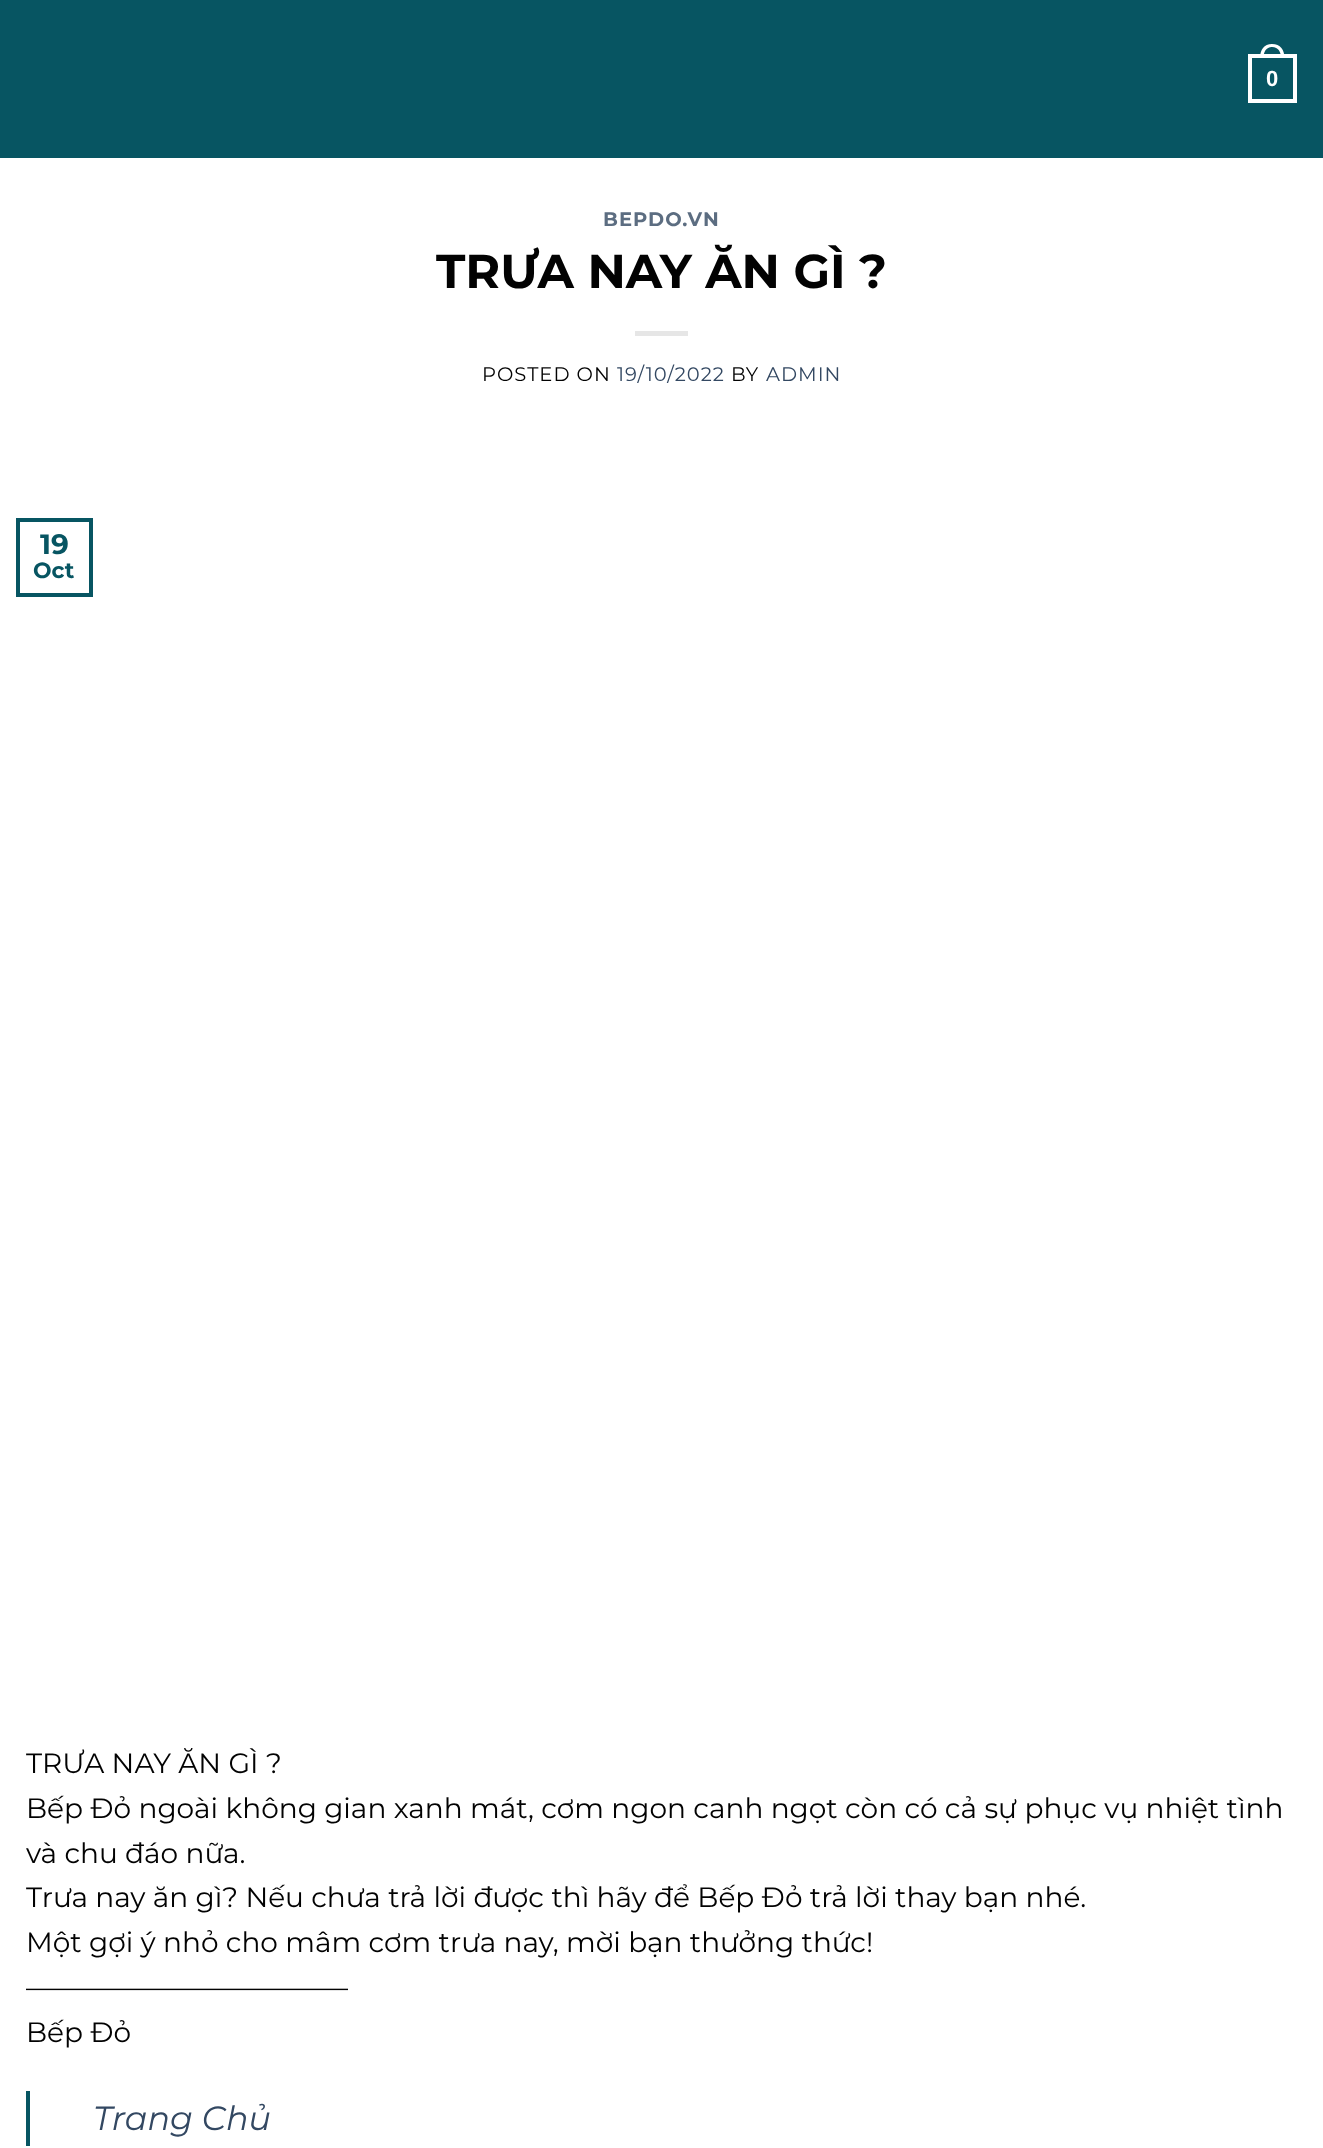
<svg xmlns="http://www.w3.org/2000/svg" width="1323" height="2148">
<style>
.a{font:bold 22px Liberation Sans;fill:#fff}
.b{font:bold 19.5px Montserrat;letter-spacing:1px;fill:#5c6d81}
.c{font:bold 47.5px Montserrat;fill:#020202}
.d{font:19.5px Montserrat;letter-spacing:1px;fill:#020202}
.e{font:19.5px Montserrat;letter-spacing:1px;fill:#334862}
.f{font:bold 28px Montserrat;fill:#075562}
.g{font:bold 22px Montserrat;fill:#075562}
.h{font:28px Montserrat;fill:#020202}
.i{font:italic 33.5px Montserrat;fill:#334862}
</style>
<rect width="100%" height="100%" fill="#fff"/>
<path fill="#075562" d="M0 0h1323v158H0z"/>
<path fill="none" stroke="#fff" stroke-width="4" d="M1250 56h45v45H1250z"/>
<path fill="#fff" fill-rule="evenodd" d="M1272 44c8.5 0 12.5 6 12.5 14h-24.5c0-8 4-14 12-14zm0 3c6.5 0 9 5 9 11h-17.5c0-6 2.5-11 8.5-11z"/>
<path fill="#e6e6e6" d="M635 331h53v5H635z"/>
<path fill="none" stroke="#075562" stroke-width="4" d="M18 520h73v75H18z"/>
<path fill="#075562" d="M26 2091h4v55H26z"/>
<text class="a" x="1266" y="86">0</text>
<text class="b" x="603" y="226">BEPDO.VN</text>
<text class="c" x="436" y="288">TRƯA NAY ĂN GÌ ?</text>
<text class="d" x="482" y="381">POSTED ON</text>
<text class="e" x="617" y="381">19/10/2022</text>
<text class="d" x="731" y="381">BY</text>
<text class="e" x="766" y="381">ADMIN</text>
<text class="f" x="40" y="554">19</text>
<text class="g" x="33" y="578">Oct</text>
<text class="h" x="26" y="1773">TRƯA NAY ĂN GÌ ?</text>
<text class="h" x="26" y="1818">Bếp Đỏ ngoài không gian xanh mát, cơm ngon canh ngọt còn có cả sự phục vụ nhiệt tình</text>
<text class="h" x="26" y="1863">và chu đáo nữa.</text>
<text class="h" x="26" y="1907">Trưa nay ăn gì? Nếu chưa trả lời được thì hãy để Bếp Đỏ trả lời thay bạn nhé.</text>
<text class="h" x="26" y="1952">Một gợi ý nhỏ cho mâm cơm trưa nay, mời bạn thưởng thức!</text>
<text class="h" x="26" y="1997">———————————–</text>
<text class="h" x="26" y="2042">Bếp Đỏ</text>
<text class="i" x="93" y="2130">Trang Chủ</text>
</svg>
